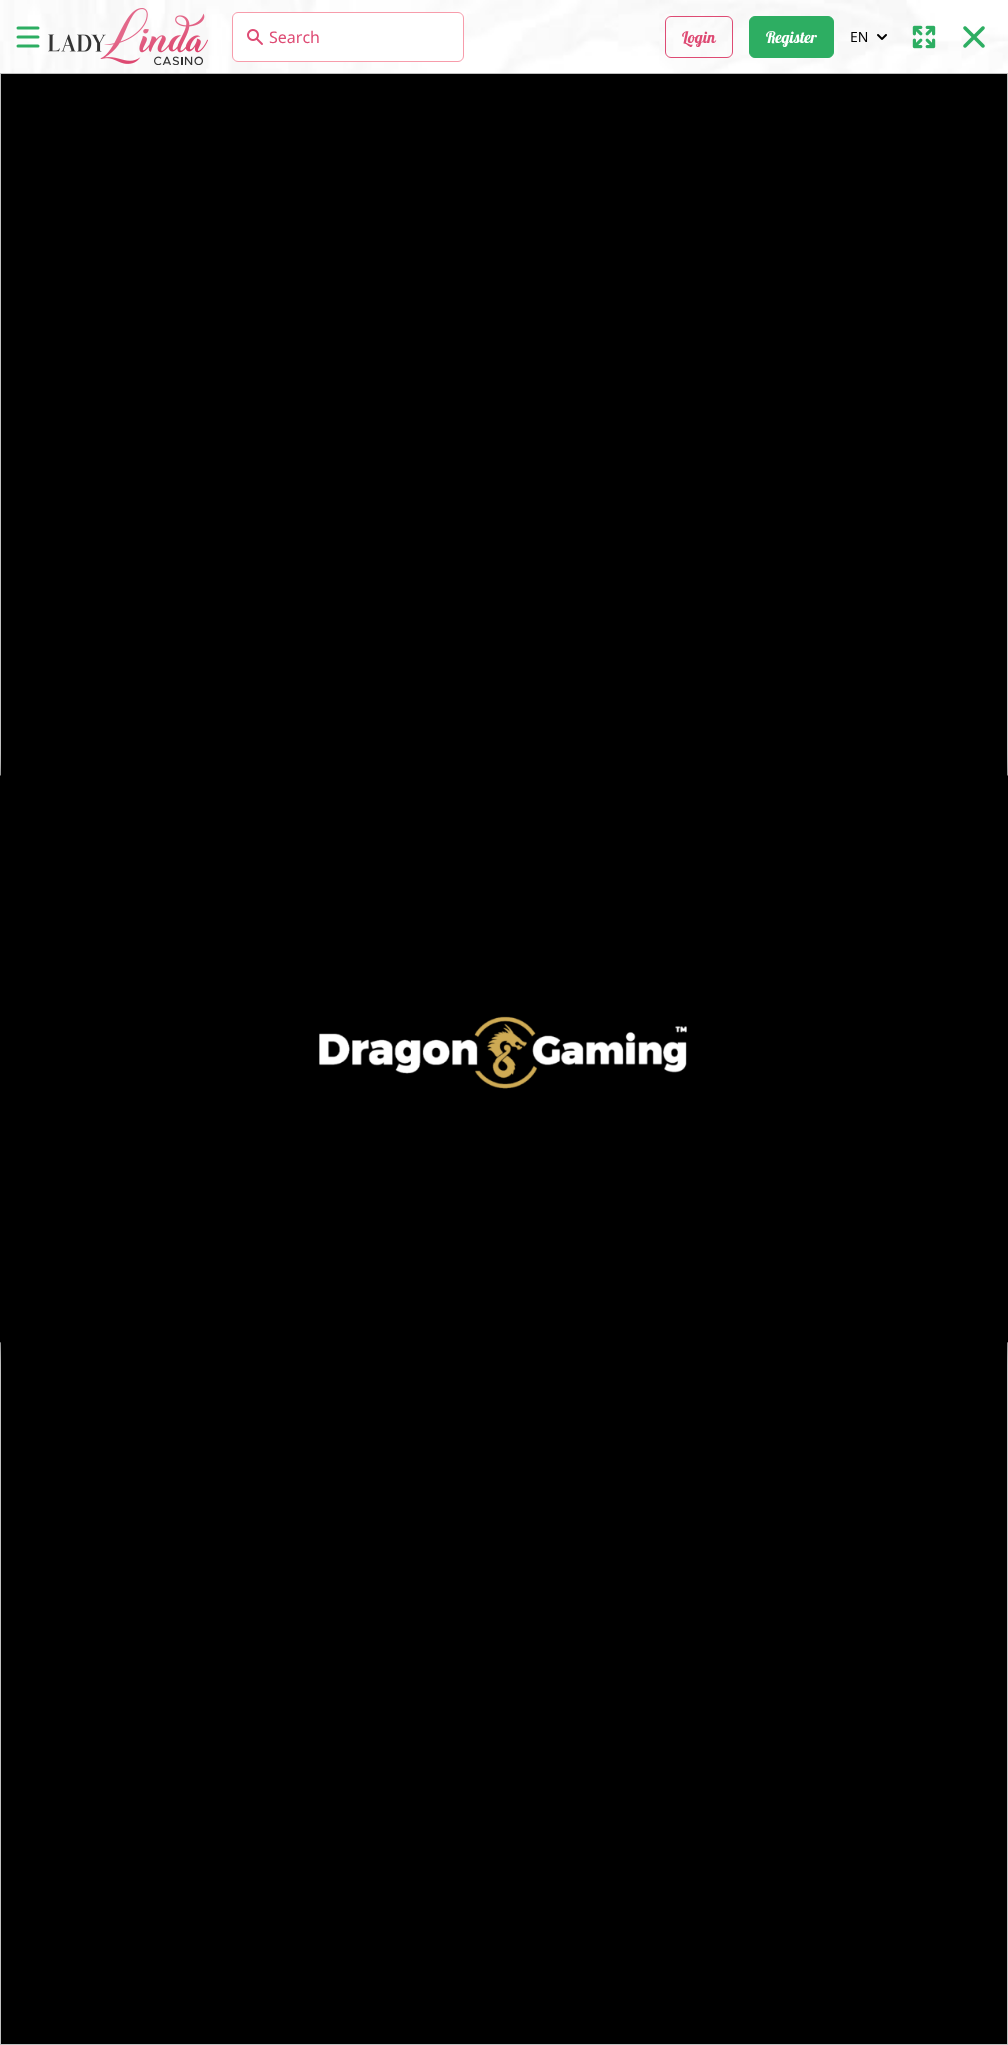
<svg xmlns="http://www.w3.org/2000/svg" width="1008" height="2045">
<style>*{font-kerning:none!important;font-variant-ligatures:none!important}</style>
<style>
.a{font:16px Noto Sans;fill:#de4b74}
.b{font:16px Lobster;fill:#de4b74}
.c{font:16px Lobster;fill:#fff}
.d{font:14px Noto Sans;fill:#000}
</style>
<rect width="100%" height="100%" fill="#fff"/>
<image href="1.png" x="0" y="0" width="1008" height="73"/>
<path fill="none" stroke="#2dae62" stroke-width="3" stroke-linecap="round" stroke-linejoin="round" d="M18 28h20m-20 9h20m-20 9h20"/>
<image href="2.png" x="48" y="8" width="160" height="57"/>
<rect fill="#fff" stroke="#f79cab" x="232.5" y="12.5" width="231" height="49" rx="5.5"/>
<image href="3.png" x="247" y="29" width="16" height="16"/>
<rect fill="none" stroke="#de4b74" x="665.5" y="16.5" width="67" height="41" rx="5.5"/>
<rect fill="#2dae62" stroke="#2dae62" x="749.5" y="16.5" width="84" height="41" rx="5.5"/>
<image href="4.png" x="877" y="34" width="10" height="6"/>
<image href="5.png" x="912" y="25" width="24" height="24"/>
<image href="6.png" x="963" y="26" width="22" height="22"/>
<image href="7.png" x="0" y="73" width="1008" height="1972"/>
<text class="a" x="269" y="43">Search</text>
<text class="b" x="682" y="43">Login</text>
<text class="c" x="766" y="43">Register</text>
<text class="d" x="850" y="42">EN</text>
</svg>
